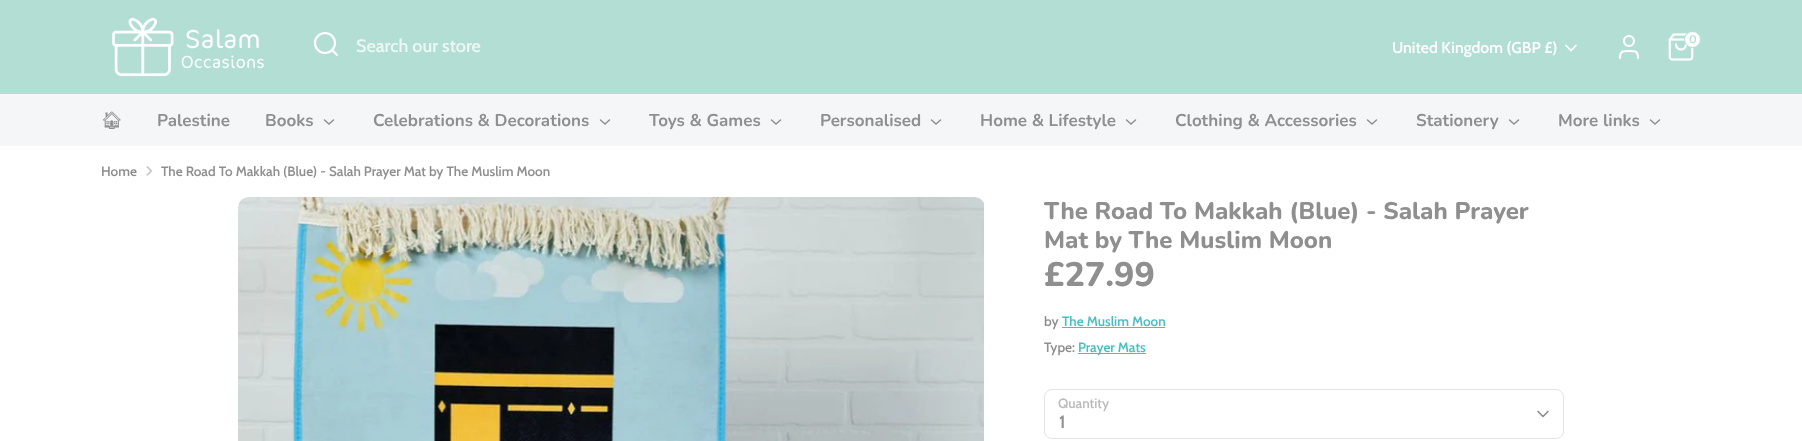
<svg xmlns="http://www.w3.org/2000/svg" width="1802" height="441">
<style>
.a{font:600 18px Cabin;fill:#ecf7f4}
.b{font:600 11px Cabin;fill:#b3ded4}
.c{font:600 15.75px Cabin;fill:#fff}
.d{font:bold 17px Noto Emoji;fill:#8f8f8f}
.e{font:bold 17px Nunito;fill:#8f8f8f}
.f{font:600 13.5px Cabin;fill:#8f8f8f}
.g{font:800 24px Nunito;fill:#8f8f8f}
.h{font:800 34px Nunito;fill:#8f8f8f}
.i{font:600 13.5px Cabin;fill:#47c1bf}
.j{font:600 13.5px Cabin;fill:#bcbcbc}
.k{font:600 18px Cabin;fill:#8f8f8f}
</style>
<rect width="100%" height="100%" fill="#fff"/>
<path fill="#b3ded4" d="M0 0h1802v94H0z"/>
<image href="1.png" x="112" y="17" width="152" height="60"/>
<circle fill="none" stroke="#fff" stroke-width="2.2" cx="325" cy="43" r="10"/>
<path fill="none" stroke="#fff" stroke-width="2.2" stroke-linecap="round" stroke-linejoin="round" d="M337 55l-5-5"/>
<path fill="none" stroke="#fff" stroke-width="2.2" stroke-linecap="round" stroke-linejoin="round" d="M1638 58c0-7-2.5-7-9-7c-6.5 0-9 0-9 7"/>
<circle fill="none" stroke="#fff" stroke-width="2.2" cx="1629" cy="41" r="5"/>
<image href="2.png" x="1668" y="33" width="26" height="28"/>
<circle fill="#fff" stroke="#b3ded4" cx="1692.5" cy="39.5" r="8"/>
<path fill="none" stroke="#fff" stroke-width="1.7" stroke-linecap="round" d="M1566 45.5l5 5l5-5"/>
<path fill="#f4f6f8" d="M0 94h1802v52H0z"/>
<path fill="none" stroke="#8f8f8f" stroke-width="1.5" stroke-linecap="round" d="M324.5 120l4.5 4l4.5-4"/>
<path fill="none" stroke="#8f8f8f" stroke-width="1.5" stroke-linecap="round" d="M600.5 120l4.5 4l4.5-4"/>
<path fill="none" stroke="#8f8f8f" stroke-width="1.5" stroke-linecap="round" d="M771.5 120l4.5 4l4.5-4"/>
<path fill="none" stroke="#8f8f8f" stroke-width="1.5" stroke-linecap="round" d="M931.5 120l4.5 4l4.5-4"/>
<path fill="none" stroke="#8f8f8f" stroke-width="1.5" stroke-linecap="round" d="M1126.5 120l4.5 4l4.5-4"/>
<path fill="none" stroke="#8f8f8f" stroke-width="1.5" stroke-linecap="round" d="M1367.5 120l4.5 4l4.5-4"/>
<path fill="none" stroke="#8f8f8f" stroke-width="1.5" stroke-linecap="round" d="M1509.5 120l4.5 4l4.5-4"/>
<path fill="none" stroke="#8f8f8f" stroke-width="1.5" stroke-linecap="round" d="M1650.5 120l4.5 4l4.5-4"/>
<image href="3.png" x="146" y="166" width="7" height="10"/>
<image href="4.png" x="238" y="197" width="746" height="244"/>
<path fill="#47c1bf" d="M1062 327h103v1H1062z"/>
<path fill="#47c1bf" d="M1078 353h68v1H1078z"/>
<rect fill="none" stroke="#e3e3e3" x="1044.5" y="389.5" width="519" height="49" rx="7.5"/>
<path fill="none" stroke="#8f8f8f" stroke-width="1.7" stroke-linecap="round" stroke-linejoin="round" d="M1538 411.5l5 5l5-5"/>
<text class="a" x="356" y="52">Search our store</text>
<text class="b" x="1689" y="43">0</text>
<text class="c" x="1392" y="53">United Kingdom (GBP £)</text>
<text class="d" x="101" y="126">🏠︎</text>
<text class="e" x="157" y="126">Palestine</text>
<text class="e" x="265" y="126">Books</text>
<text class="e" x="373" y="126">Celebrations &amp; Decorations</text>
<text class="e" x="649" y="126">Toys &amp; Games</text>
<text class="e" x="820" y="126">Personalised</text>
<text class="e" x="980" y="126">Home &amp; Lifestyle</text>
<text class="e" x="1175" y="126">Clothing &amp; Accessories</text>
<text class="e" x="1416" y="126">Stationery</text>
<text class="e" x="1558" y="126">More links</text>
<text class="f" x="101" y="176">Home</text>
<text class="f" x="161" y="176">The Road To Makkah (Blue) - Salah Prayer Mat by The Muslim Moon</text>
<text class="g" x="1044" y="219">The Road To Makkah (Blue) - Salah Prayer</text>
<text class="g" x="1044" y="248">Mat by The Muslim Moon</text>
<text class="h" x="1044" y="286">£27.99</text>
<text class="f" x="1044" y="326">by</text>
<text class="i" x="1062" y="326">The Muslim Moon</text>
<text class="f" x="1044" y="352">Type:</text>
<text class="i" x="1078" y="352">Prayer Mats</text>
<text class="j" x="1058" y="408">Quantity</text>
<text class="k" x="1059" y="428">1</text>
</svg>
